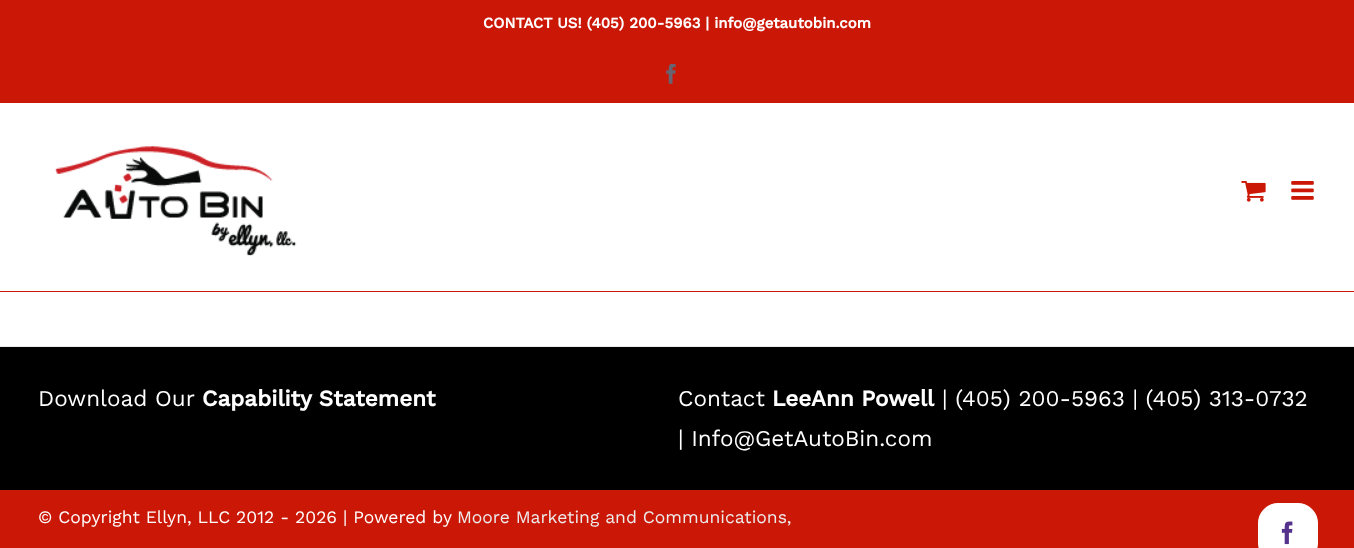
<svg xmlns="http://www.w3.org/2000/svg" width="1354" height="548">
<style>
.a{font:bold 15px Work Sans;fill:#fff}
.b{font:22.5px Work Sans;fill:#fff}
.c{font:bold 22.5px Work Sans;fill:#fff}
.d{font:17.5px Work Sans;fill:#fff}
.e{font:17.5px Work Sans;fill:#ececed}
</style>
<rect width="100%" height="100%" fill="#fff"/>
<path fill="#cb1806" d="M0 0h1354v103H0z"/>
<image href="1.png" x="666" y="64" width="10" height="20"/>
<path fill="#cb1806" d="M0 291h1354v1H0z"/>
<image href="2.png" x="55" y="146" width="242" height="110"/>
<image href="3.png" x="1241" y="181" width="25" height="21"/>
<image href="4.png" x="1291" y="181" width="23" height="19"/>
<path fill="#000" d="M0 347h1354v143H0z"/>
<path fill="#ececed" d="M0 346h1354v1H0z"/>
<path fill="#cb1806" d="M0 490h1354v58H0z"/>
<rect fill="#fff" stroke="#fff" x="1258.5" y="503.5" width="59" height="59" rx="19.5"/>
<image href="5.png" x="1281" y="521" width="12" height="24"/>
<text class="a" x="483" y="28">CONTACT US! (405) 200-5963 | info@getautobin.com</text>
<text class="b" x="38" y="406">Download Our</text>
<text class="c" x="202" y="406">Capability Statement</text>
<text class="b" x="678" y="406">Contact</text>
<text class="c" x="772" y="406">LeeAnn Powell</text>
<text class="b" x="942" y="406">| (405) 200-5963 | (405) 313-0732</text>
<text class="b" x="678" y="446">| Info@GetAutoBin.com</text>
<text class="d" x="38" y="523">© Copyright Ellyn, LLC 2012 - 2026 | Powered by</text>
<text class="e" x="457" y="523">Moore Marketing and Communications,</text>
</svg>
